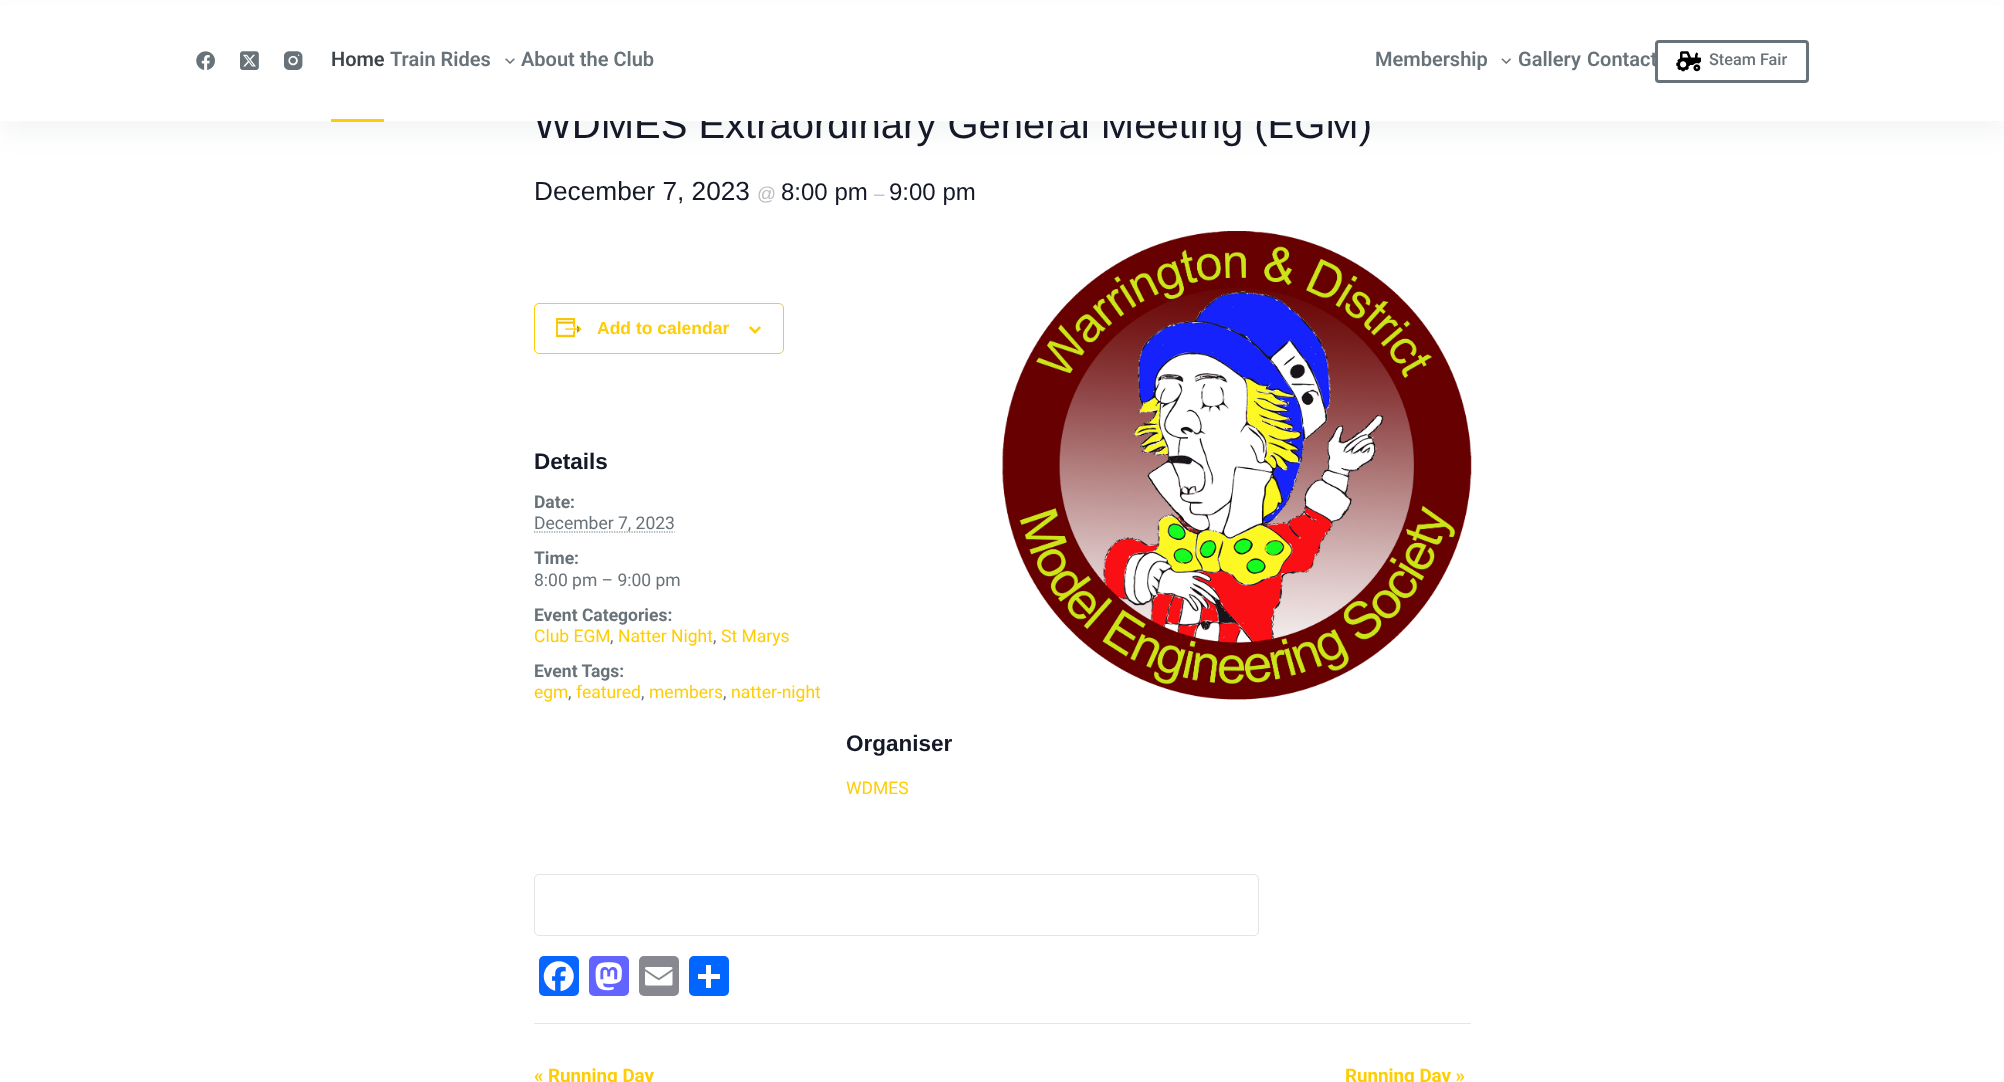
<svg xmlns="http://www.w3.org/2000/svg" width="2004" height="1082">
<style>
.a{font:40px Liberation Sans;fill:#141827}
.b{font:600 20px Roboto;fill:#687279}
.c{font:600 20px Roboto;fill:#3d4448}
.d{font:500 16.25px Roboto;fill:#687279}
.e{font:26.25px Liberation Sans;fill:#141827}
.f{font:18.75px Liberation Sans;fill:#b9bec2}
.g{font:24px Liberation Sans;fill:#141827}
.h{font:bold 17.5px Liberation Sans;fill:#ffcd05}
.i{font:bold 22.5px Liberation Sans;fill:#141827}
.j{font:bold 17.5px Roboto;fill:#687279}
.k{font:17.5px Roboto;fill:#687279}
.l{font:17.5px Roboto;fill:#ffcd05}
.m{font:bold 18.75px Roboto;fill:#ffcd05}
</style>
<rect width="100%" height="100%" fill="#fff"/>
<path fill="#2b3d4f0d" filter="blur(12.5px)" d="M0 13h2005v121H0z"/>
<rect fill="none" stroke="#ffcd05" x="534.5" y="303.5" width="249" height="50" rx="4.5"/>
<image href="7.png" x="556" y="318" width="26" height="20"/>
<image href="8.png" x="749" y="326" width="12" height="8"/>
<image href="9.png" x="1002" y="231" width="470" height="469"/>
<path fill="none" stroke="#687279" stroke-width="1.2" stroke-dasharray="1.25 1.25" d="M534 532h140.5"/>
<rect fill="none" stroke="#e4e4e4" x="534.5" y="874.5" width="724" height="61" rx="4.5"/>
<rect fill="#0866ff" x="539" y="956" width="40" height="40" rx="5"/>
<image href="10.png" x="543" y="961" width="31" height="31"/>
<rect fill="#6364ff" x="589" y="956" width="40" height="40" rx="5"/>
<image href="11.png" x="595" y="962" width="27" height="29"/>
<rect fill="#888990" x="639" y="956" width="40" height="40" rx="5"/>
<image href="12.png" x="645" y="967" width="28" height="19"/>
<rect fill="#0166ff" x="689" y="956" width="40" height="40" rx="5"/>
<path fill="#fff" d="M706 965h5v23H706z"/>
<path fill="#fff" d="M698 974h22v5H698z"/>
<path fill="#e5e5e5" d="M534 1023h937v1H534z"/>
<text class="a" x="534" y="138">WDMES Extraordinary General Meeting (EGM)</text>
<path fill="#fff" d="M0 5h2004v116H0z"/>
<rect fill="none" stroke="#687279" stroke-width="3" x="1656.5" y="41.5" width="151" height="40" rx="2.5"/>
<text class="b" x="1587" y="66">Contact</text>
<text class="b" x="1518" y="66">Gallery</text>
<image href="5.png" x="1501" y="58" width="10" height="6"/>
<text class="b" x="1375" y="66">Membership</text>
<text class="b" x="521" y="66">About the Club</text>
<image href="4.png" x="505" y="58" width="10" height="6"/>
<text class="b" x="390" y="66">Train Rides</text>
<path fill="#ffcd05" d="M331 119h53v3H331z"/>
<text class="c" x="331" y="66">Home</text>
<image href="3.png" x="284" y="51" width="19" height="19"/>
<image href="2.png" x="240" y="51" width="19" height="19"/>
<image href="1.png" x="196" y="51" width="19" height="19"/>
<image href="6.png" x="1676" y="51" width="25" height="21"/>
<text class="d" x="1709" y="65">Steam Fair</text>
<text class="e" x="534" y="200">December 7, 2023</text>
<text class="f" x="757" y="200">@</text>
<text class="g" x="781" y="200">8:00 pm</text>
<text class="f" x="874" y="200">–</text>
<text class="g" x="889" y="200">9:00 pm</text>
<text class="h" x="597" y="334">Add to calendar</text>
<text class="i" x="534" y="469">Details</text>
<text class="j" x="534" y="508">Date:</text>
<text class="k" x="534" y="529">December 7, 2023</text>
<text class="j" x="534" y="564">Time:</text>
<text class="k" x="534" y="586">8:00 pm – 9:00 pm</text>
<text class="j" x="534" y="621">Event Categories:</text>
<text class="l" x="534" y="642">Club EGM</text>
<text class="k" x="610" y="642">,</text>
<text class="l" x="618" y="642">Natter Night</text>
<text class="k" x="713" y="642">,</text>
<text class="l" x="721" y="642">St Marys</text>
<text class="j" x="534" y="677">Event Tags:</text>
<text class="l" x="534" y="698">egm</text>
<text class="k" x="568" y="698">,</text>
<text class="l" x="576" y="698">featured</text>
<text class="k" x="641" y="698">,</text>
<text class="l" x="649" y="698">members</text>
<text class="k" x="723" y="698">,</text>
<text class="l" x="731" y="698">natter-night</text>
<text class="i" x="846" y="751">Organiser</text>
<text class="l" x="846" y="794">WDMES</text>
<text class="m" x="534" y="1082">« Running Day</text>
<text class="m" x="1345" y="1082">Running Day »</text>
</svg>
